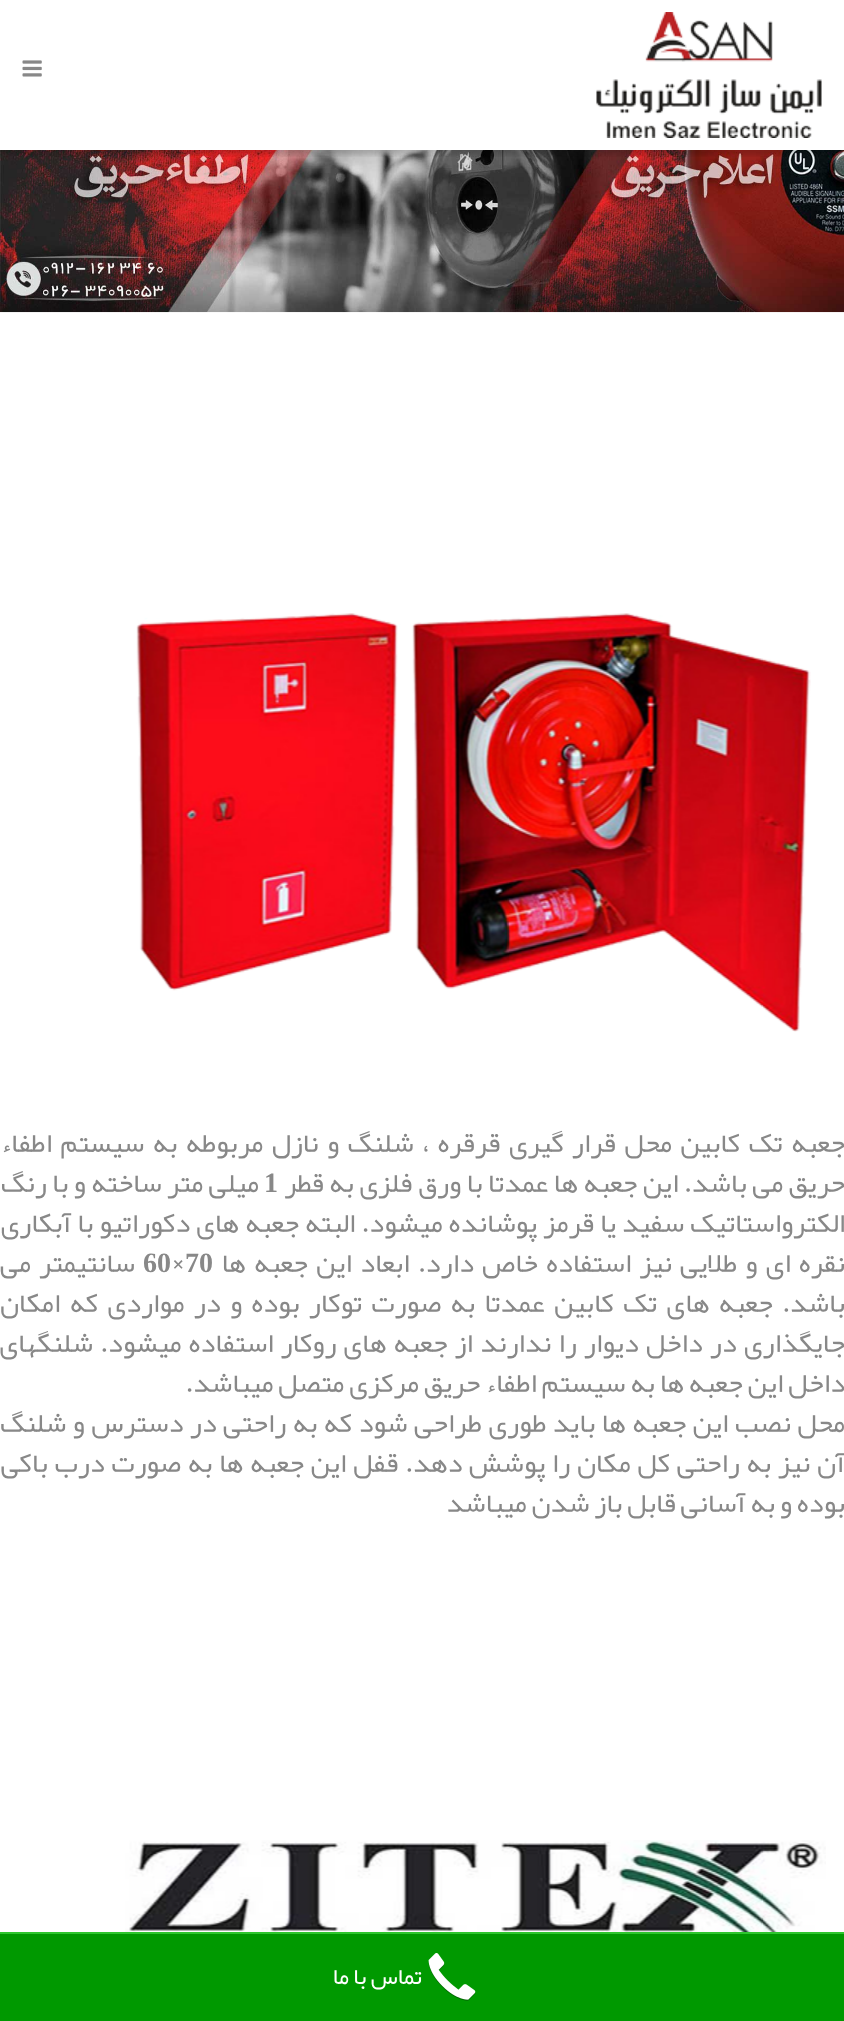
<svg xmlns="http://www.w3.org/2000/svg" width="844" height="2021">
<style>
.a{font:28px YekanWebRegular;direction:rtl;fill:#888}
.b{font:bold 28px Liberation Serif;fill:#888}
.c{font:28px YekanWebRegular;fill:#888}
.d{font:23.5px YekanWebRegular;direction:rtl;fill:#fff}
</style>
<defs>
<clipPath id="clip1"><path d="M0 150h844v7H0z"/></clipPath>
</defs>
<rect width="100%" height="100%" fill="#fff"/>
<image href="3.png" x="0" y="150" width="844" height="163"/>
<g clip-path="url(#clip1)">
<path fill="#00000026" filter="blur(2px)" d="M0 5h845v150H0z"/>
</g>
<image href="1.png" x="596" y="12" width="226" height="126"/>
<image href="2.png" x="22" y="60" width="20" height="17"/>
<image href="4.png" x="136" y="613" width="675" height="419"/>
<image href="5.png" x="125" y="1840" width="701" height="92"/>
<path fill="#090" d="M0 1934h844v87H0z"/>
<path fill="#2dc62d" d="M0 1932h844v2H0z"/>
<image href="6.png" x="428" y="1953" width="48" height="48"/>
<text class="a" x="845" y="1152" word-spacing="3.6">جعبه تک کابین محل قرار گیری قرقره ، شلنگ و نازل مربوطه به سیستم اطفاء</text>
<text class="a" x="845" y="1192" word-spacing="0.6">حریق می باشد. این جعبه ها عمدتا با ورق فلزی به قطر</text>
<text class="b" x="264" y="1192">1</text>
<text class="a" x="259" y="1192" word-spacing="0.6">میلی متر ساخته و با رنگ</text>
<text class="a" x="845" y="1232" word-spacing="1.1">الکترواستاتیک سفید یا قرمز پوشانده میشود. البته جعبه های دکوراتیو با آبکاری</text>
<text class="a" x="845" y="1272" word-spacing="3.4">نقره ای و طلایی نیز استفاده خاص دارد. ابعاد این جعبه ها</text>
<text class="b" x="185" y="1272">70</text>
<text class="c" x="171" y="1272">×</text>
<text class="b" x="143" y="1272">60</text>
<text class="a" x="135" y="1272" word-spacing="3.4">سانتیمتر می</text>
<text class="a" x="845" y="1312" word-spacing="4.5">باشد. جعبه های تک کابین عمدتا به صورت توکار بوده و در مواردی که امکان</text>
<text class="a" x="845" y="1352" word-spacing="2.25">جایگذاری در داخل دیوار را ندارند از جعبه های روکار استفاده میشود. شلنگهای</text>
<text class="a" x="845" y="1392">داخل این جعبه ها به سیستم اطفاء حریق مرکزی متصل میباشد.</text>
<text class="a" x="845" y="1432" word-spacing="1.6">محل نصب این جعبه ها باید طوری طراحی شود که به راحتی در دسترس و شلنگ</text>
<text class="a" x="845" y="1472" word-spacing="1.9">آن نیز به راحتی کل مکان را پوشش دهد. قفل این جعبه ها به صورت درب باکی</text>
<text class="a" x="845" y="1512">بوده و به آسانی قابل باز شدن میباشد</text>
<text class="d" x="422" y="1984">تماس با ما</text>
</svg>
